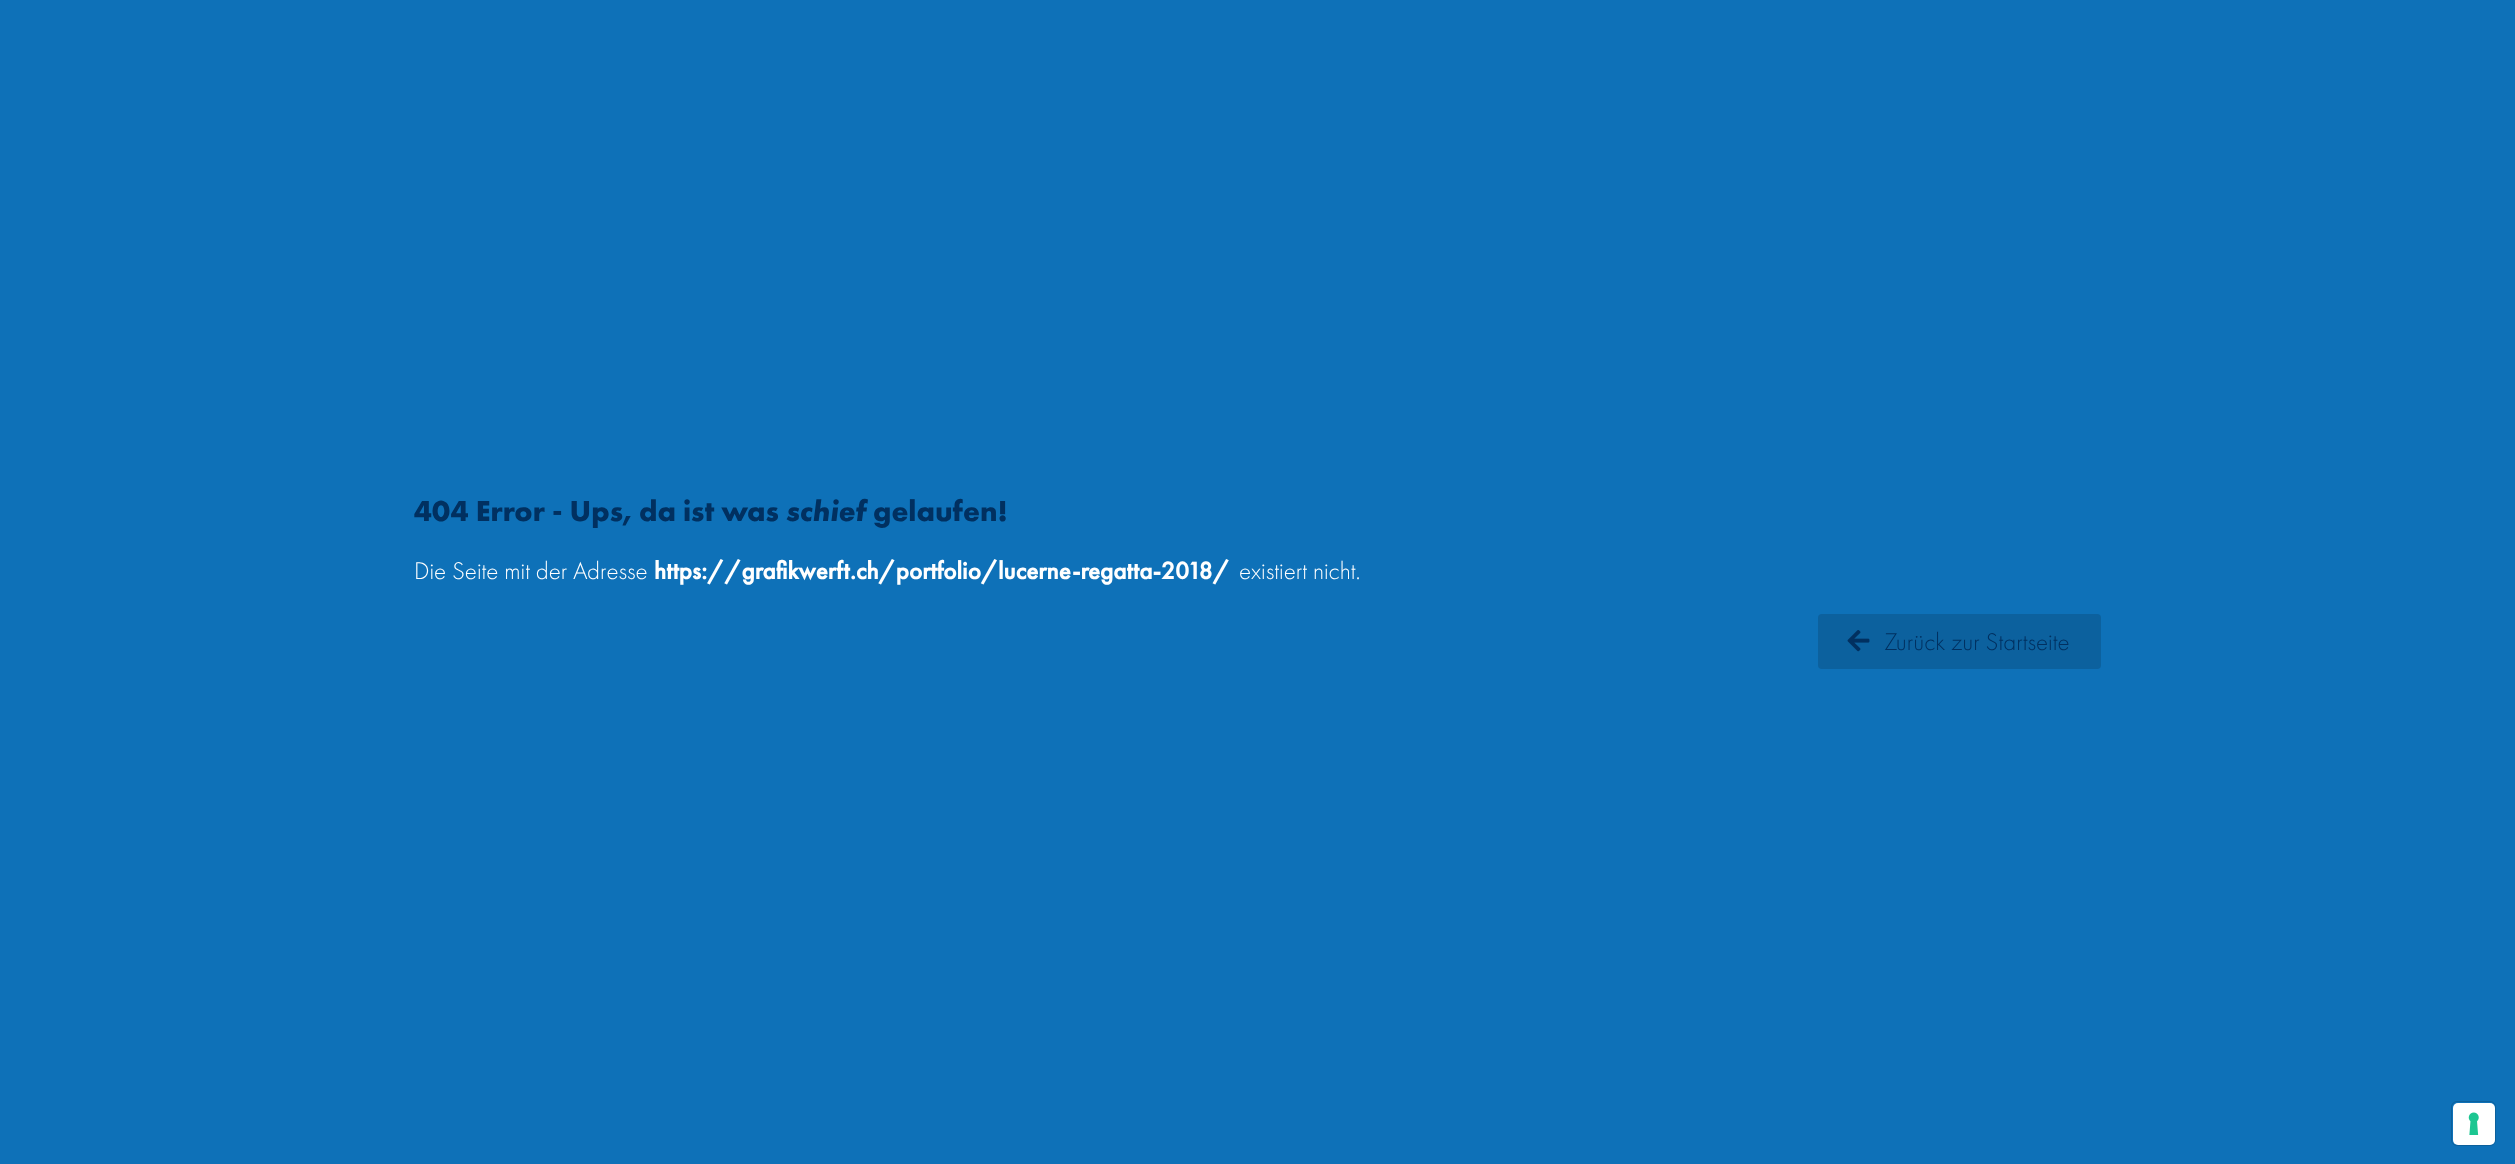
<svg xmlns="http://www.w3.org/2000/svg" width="2515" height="1164">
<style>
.a{font:bold 30px Futura PT;fill:#013060}
.b{font:italic bold 30px Futura PT;fill:#013060}
.c{font:300 25px Futura PT;fill:#fff}
.d{font:bold 25px 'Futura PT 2';fill:#fff}
.e{font:300 25px Futura PT;fill:#013060}
</style>
<rect width="100%" height="100%" fill="#0e71b8"/>
<rect fill="#0c619e" x="1818" y="614" width="283" height="55" rx="4"/>
<image href="1.png" x="1847" y="630" width="23" height="22"/>
<rect fill="none" stroke="#0c609c" x="2451.5" y="1101.5" width="44" height="44" rx="5.5"/>
<rect fill="#fff" x="2453" y="1103" width="42" height="42" rx="5"/>
<image href="2.png" x="2468" y="1112" width="11" height="23"/>
<text class="a" x="414" y="521">404 Error - Ups, da ist was</text>
<text class="b" x="786" y="521">schief</text>
<text class="a" x="873" y="521">gelaufen!</text>
<text class="c" x="414" y="579">Die Seite mit der Adresse</text>
<text class="d" x="654" y="579">https://grafikwerft.ch/portfolio/lucerne-regatta-2018/</text>
<text class="c" x="1239" y="579">existiert nicht.</text>
<text class="e" x="1884" y="650">Zurück zur Startseite</text>
</svg>
